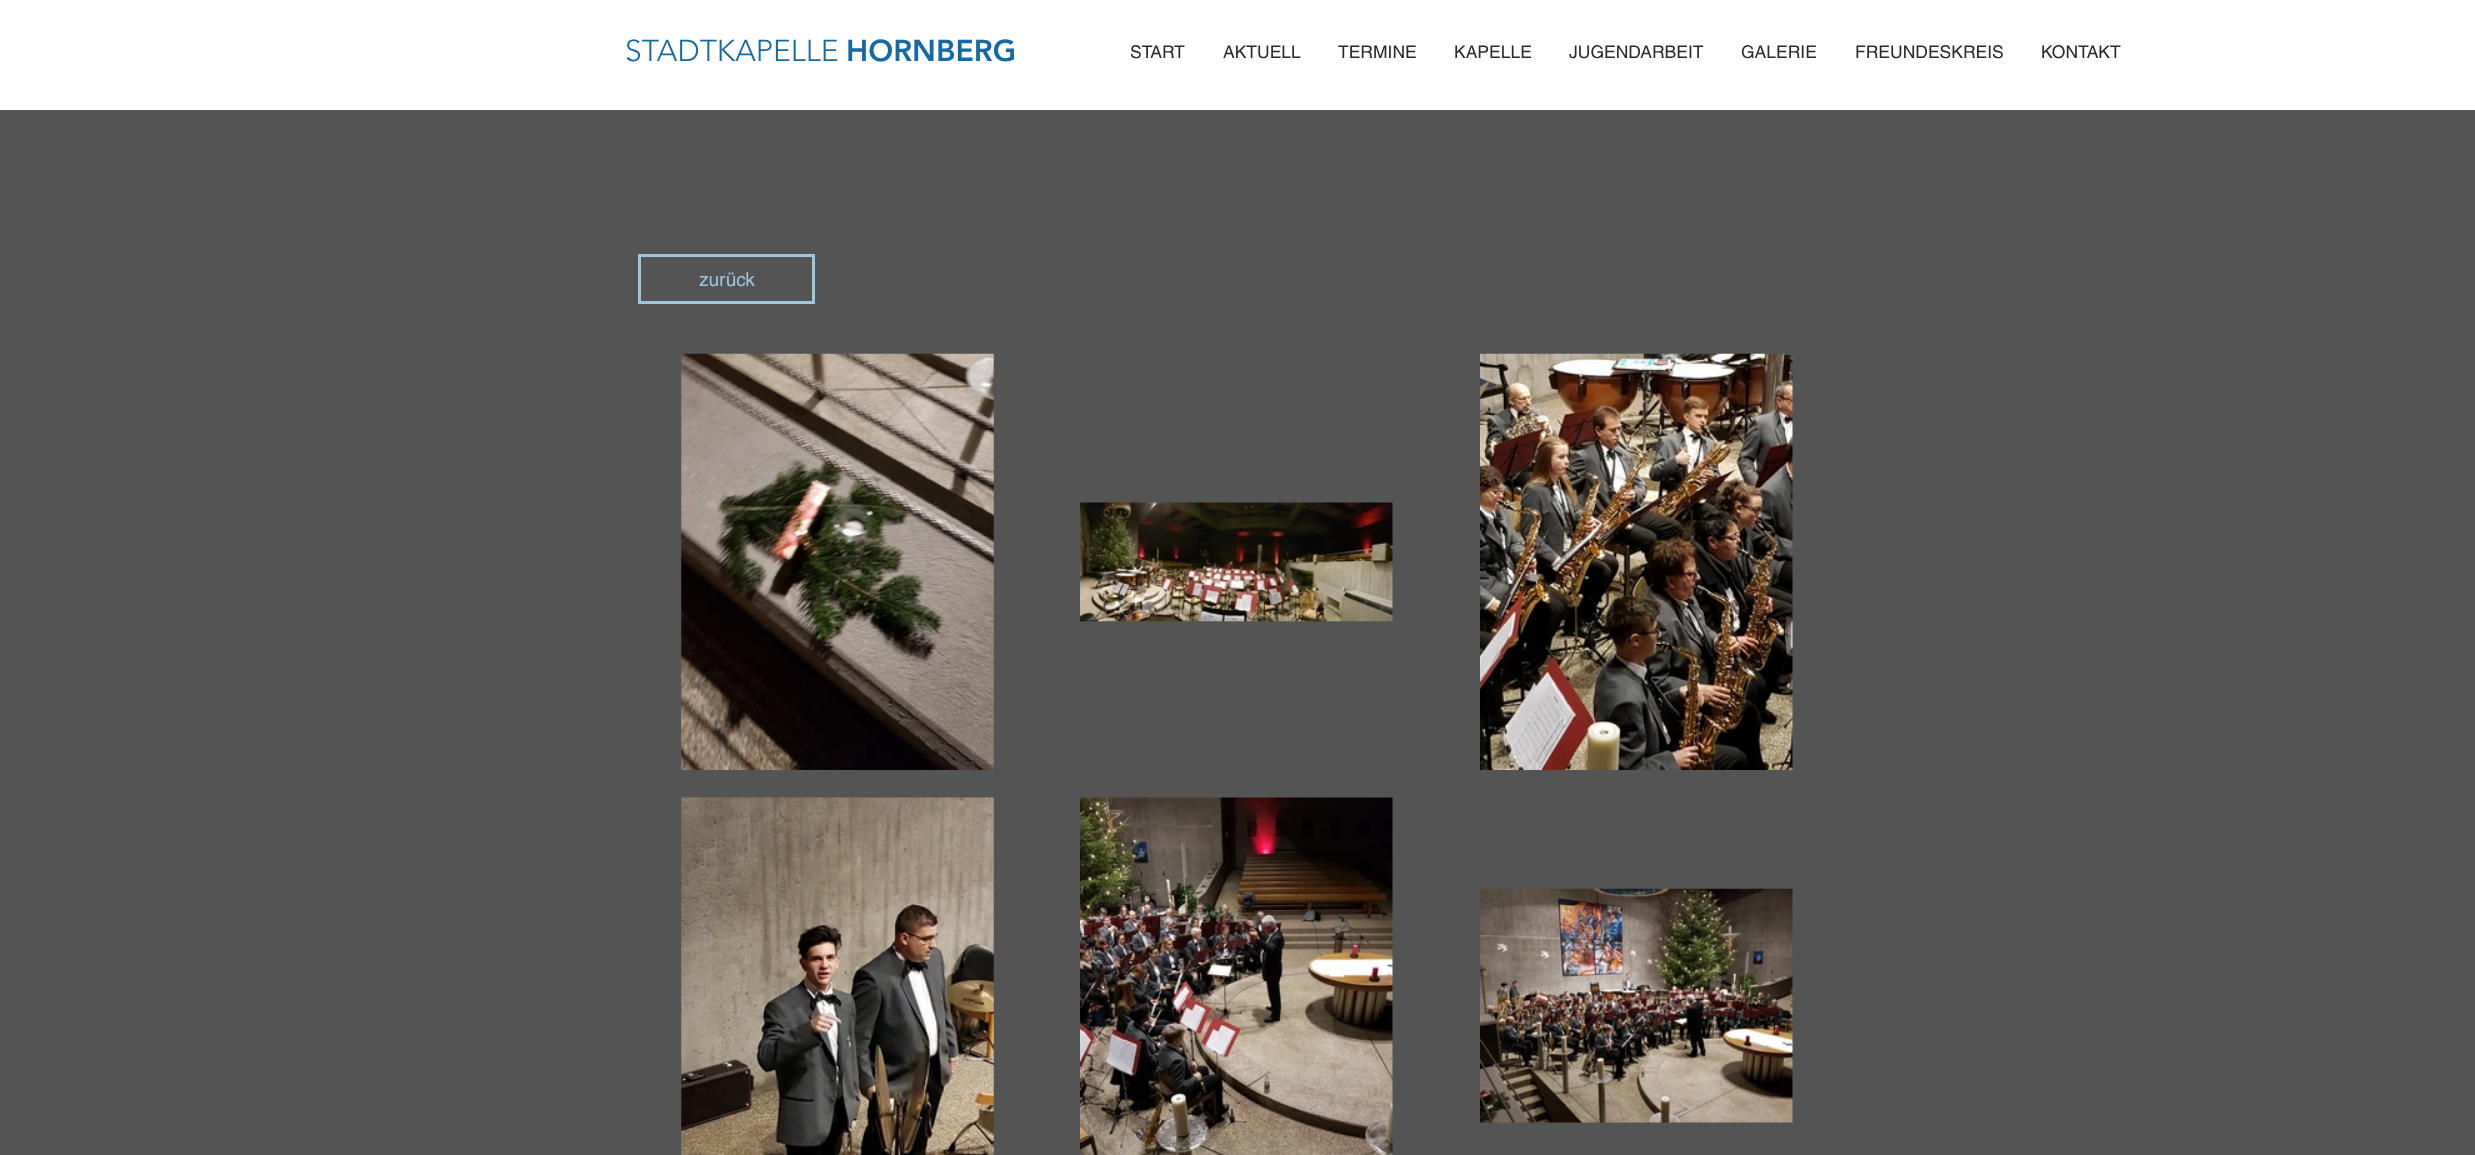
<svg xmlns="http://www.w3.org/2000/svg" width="2475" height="1155">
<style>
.a{font:300 30px 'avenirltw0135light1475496';fill:#1469a6}
.b{font:900 30px 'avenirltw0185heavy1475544';fill:#1469a6}
.c{font:17.5px helvetica;fill:#2a2a2a}
.d{font:19px helvetica;fill:#9fc6e1}
</style>
<rect width="100%" height="100%" fill="#545454"/>
<path fill="#fff" d="M0 0h2475v110H0z"/>
<path fill="none" stroke="#9fc6e1" stroke-width="3" d="M639.5 255.5h174v47H639.5z"/>
<image href="1.png" x="681" y="353" width="313" height="417"/>
<image href="2.png" x="1080" y="502" width="313" height="120"/>
<image href="3.png" x="1480" y="353" width="313" height="417"/>
<image href="4.png" x="681" y="797" width="313" height="358"/>
<image href="5.png" x="1080" y="797" width="313" height="358"/>
<image href="6.png" x="1480" y="888" width="313" height="235"/>
<text class="a" x="625" y="61">STADTKAPELLE</text>
<text class="b" x="846" y="61">HORNBERG</text>
<text class="c" x="1130" y="58">START</text>
<text class="c" x="1223" y="58">AKTUELL</text>
<text class="c" x="1338" y="58">TERMINE</text>
<text class="c" x="1454" y="58">KAPELLE</text>
<text class="c" x="1569" y="58">JUGENDARBEIT</text>
<text class="c" x="1741" y="58">GALERIE</text>
<text class="c" x="1855" y="58">FREUNDESKREIS</text>
<text class="c" x="2041" y="58">KONTAKT</text>
<text class="d" x="699" y="286">zurück</text>
</svg>
